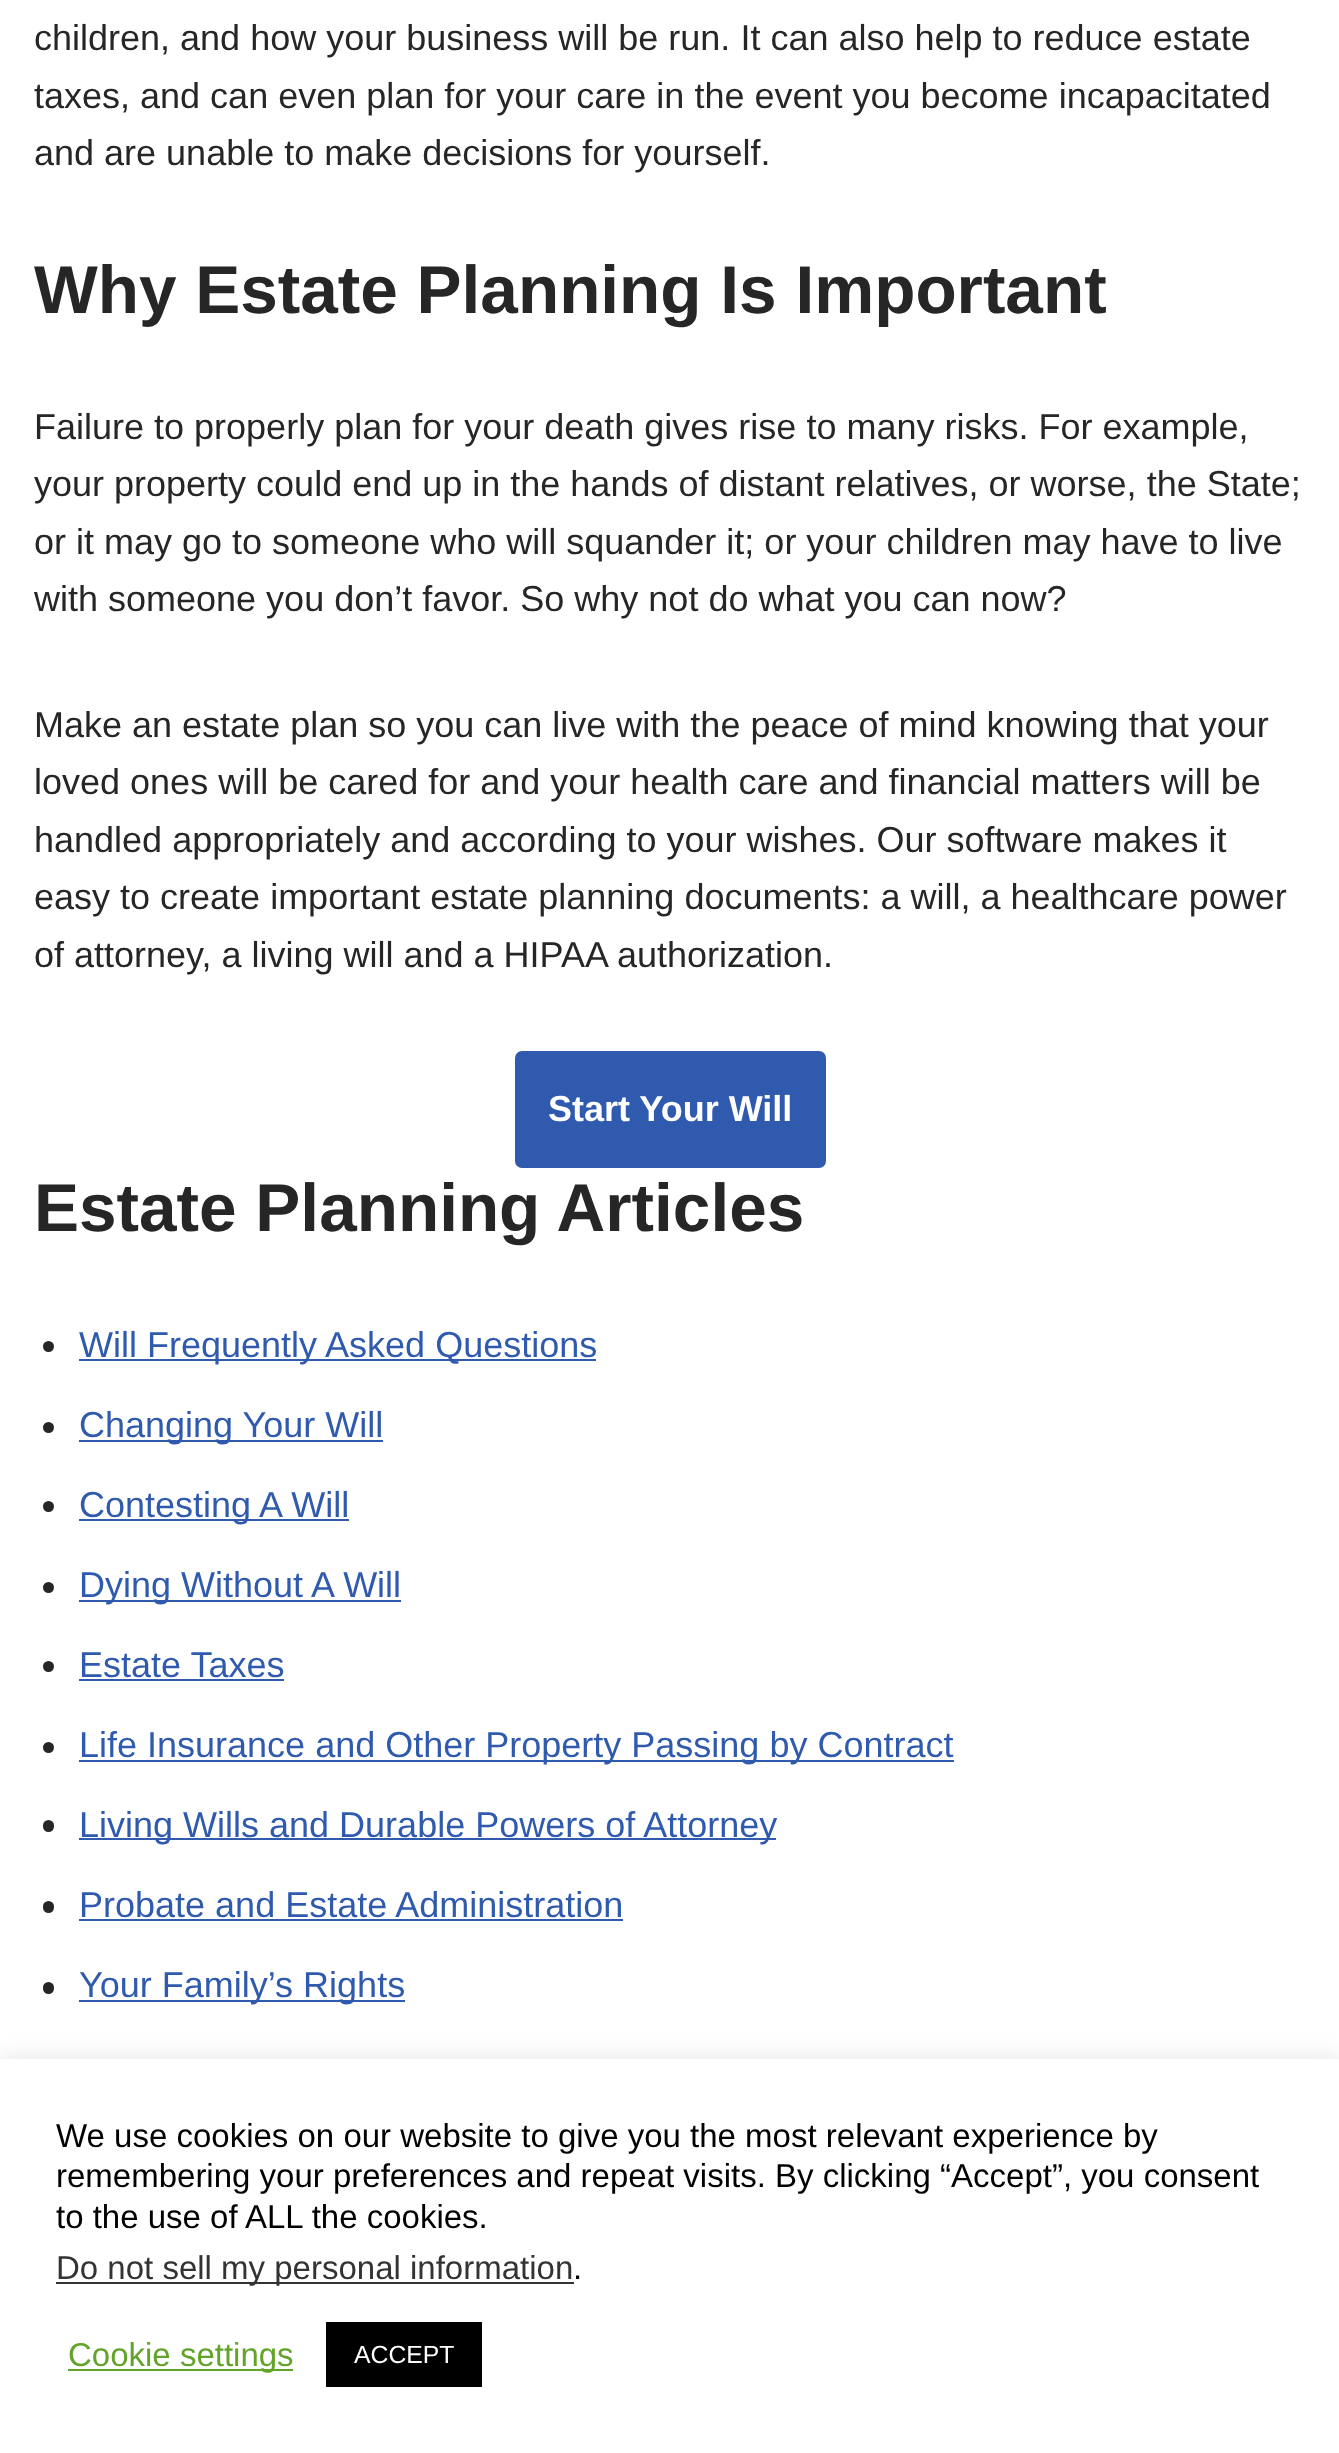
<svg xmlns="http://www.w3.org/2000/svg" width="1339" height="2453">
<style>
.a{font:36px Liberation Sans;fill:#272626}
.b{font:bold 67.5px Liberation Sans;fill:#272626}
.c{font:bold 36px Liberation Sans;fill:#fff}
.d{font:36px Liberation Sans;fill:#2f5aae}
.e{font:33px Liberation Sans;fill:#000}
.f{font:33px Liberation Sans;fill:#333}
.g{font:33px Liberation Sans;fill:#62a329}
.h{font:24.75px Liberation Sans;fill:#fff}
</style>
<rect width="100%" height="100%" fill="#fff"/>
<rect fill="#2f5aae" x="515" y="1051" width="311" height="117" rx="7"/>
<circle fill="#272626" cx="48.5" cy="1346.5" r="5.5"/>
<path fill="#2f5aae" d="M79 1359h517v2H79z"/>
<circle fill="#272626" cx="48.5" cy="1427.5" r="5.5"/>
<path fill="#2f5aae" d="M79 1440h304v2H79z"/>
<circle fill="#272626" cx="48.5" cy="1506.5" r="5.5"/>
<path fill="#2f5aae" d="M79 1519h270v2H79z"/>
<circle fill="#272626" cx="48.5" cy="1587.5" r="5.5"/>
<path fill="#2f5aae" d="M79 1600h322v2H79z"/>
<circle fill="#272626" cx="48.5" cy="1666.5" r="5.5"/>
<path fill="#2f5aae" d="M79 1679h205v2H79z"/>
<circle fill="#272626" cx="48.5" cy="1747.5" r="5.5"/>
<path fill="#2f5aae" d="M79 1760h875v2H79z"/>
<rect fill="#272626" x="43" y="1820" width="11" height="12" rx="5.5"/>
<path fill="#2f5aae" d="M79 1838h697v2H79z"/>
<rect fill="#272626" x="43" y="1901" width="11" height="12" rx="5.5"/>
<path fill="#2f5aae" d="M79 1919h544v2H79z"/>
<rect fill="#272626" x="43" y="1982" width="11" height="12" rx="5.5"/>
<path fill="#2f5aae" d="M79 2000h326v2H79z"/>
<path fill="#acabab4d" filter="blur(11px)" d="M0 2057h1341v396H0z"/>
<path fill="#fff" d="M0 2059h1339v394H0z"/>
<path fill="#333" d="M56 2282h518v2H56z"/>
<path fill="#62a329" d="M68 2369h225v2H68z"/>
<path fill="#000" d="M326 2322h156v65H326z"/>
<text class="a" x="34" y="50">children, and how your business will be run. It can also help to reduce estate</text>
<text class="a" x="34" y="108">taxes, and can even plan for your care in the event you become incapacitated</text>
<text class="a" x="34" y="165">and are unable to make decisions for yourself.</text>
<text class="b" x="34" y="313">Why Estate Planning Is Important</text>
<text class="a" x="34" y="439">Failure to properly plan for your death gives rise to many risks. For example,</text>
<text class="a" x="34" y="496">your property could end up in the hands of distant relatives, or worse, the State;</text>
<text class="a" x="34" y="554">or it may go to someone who will squander it; or your children may have to live</text>
<text class="a" x="34" y="611">with someone you don’t favor. So why not do what you can now?</text>
<text class="a" x="34" y="737">Make an estate plan so you can live with the peace of mind knowing that your</text>
<text class="a" x="34" y="794">loved ones will be cared for and your health care and financial matters will be</text>
<text class="a" x="34" y="852">handled appropriately and according to your wishes. Our software makes it</text>
<text class="a" x="34" y="909">easy to create important estate planning documents: a will, a healthcare power</text>
<text class="a" x="34" y="967">of attorney, a living will and a HIPAA authorization.</text>
<text class="c" x="548" y="1121">Start Your Will</text>
<text class="b" x="34" y="1231">Estate Planning Articles</text>
<text class="d" x="79" y="1357">Will Frequently Asked Questions</text>
<text class="d" x="79" y="1437">Changing Your Will</text>
<text class="d" x="79" y="1517">Contesting A Will</text>
<text class="d" x="79" y="1597">Dying Without A Will</text>
<text class="d" x="79" y="1677">Estate Taxes</text>
<text class="d" x="79" y="1757">Life Insurance and Other Property Passing by Contract</text>
<text class="d" x="79" y="1837">Living Wills and Durable Powers of Attorney</text>
<text class="d" x="79" y="1917">Probate and Estate Administration</text>
<text class="d" x="79" y="1997">Your Family’s Rights</text>
<text class="e" x="56" y="2147">We use cookies on our website to give you the most relevant experience by</text>
<text class="e" x="56" y="2187">remembering your preferences and repeat visits. By clicking “Accept”, you consent</text>
<text class="e" x="56" y="2228">to the use of ALL the cookies.</text>
<text class="f" x="56" y="2279">Do not sell my personal information</text>
<text class="e" x="573" y="2279">.</text>
<text class="g" x="68" y="2366">Cookie settings</text>
<text class="h" x="354" y="2363">ACCEPT</text>
</svg>
